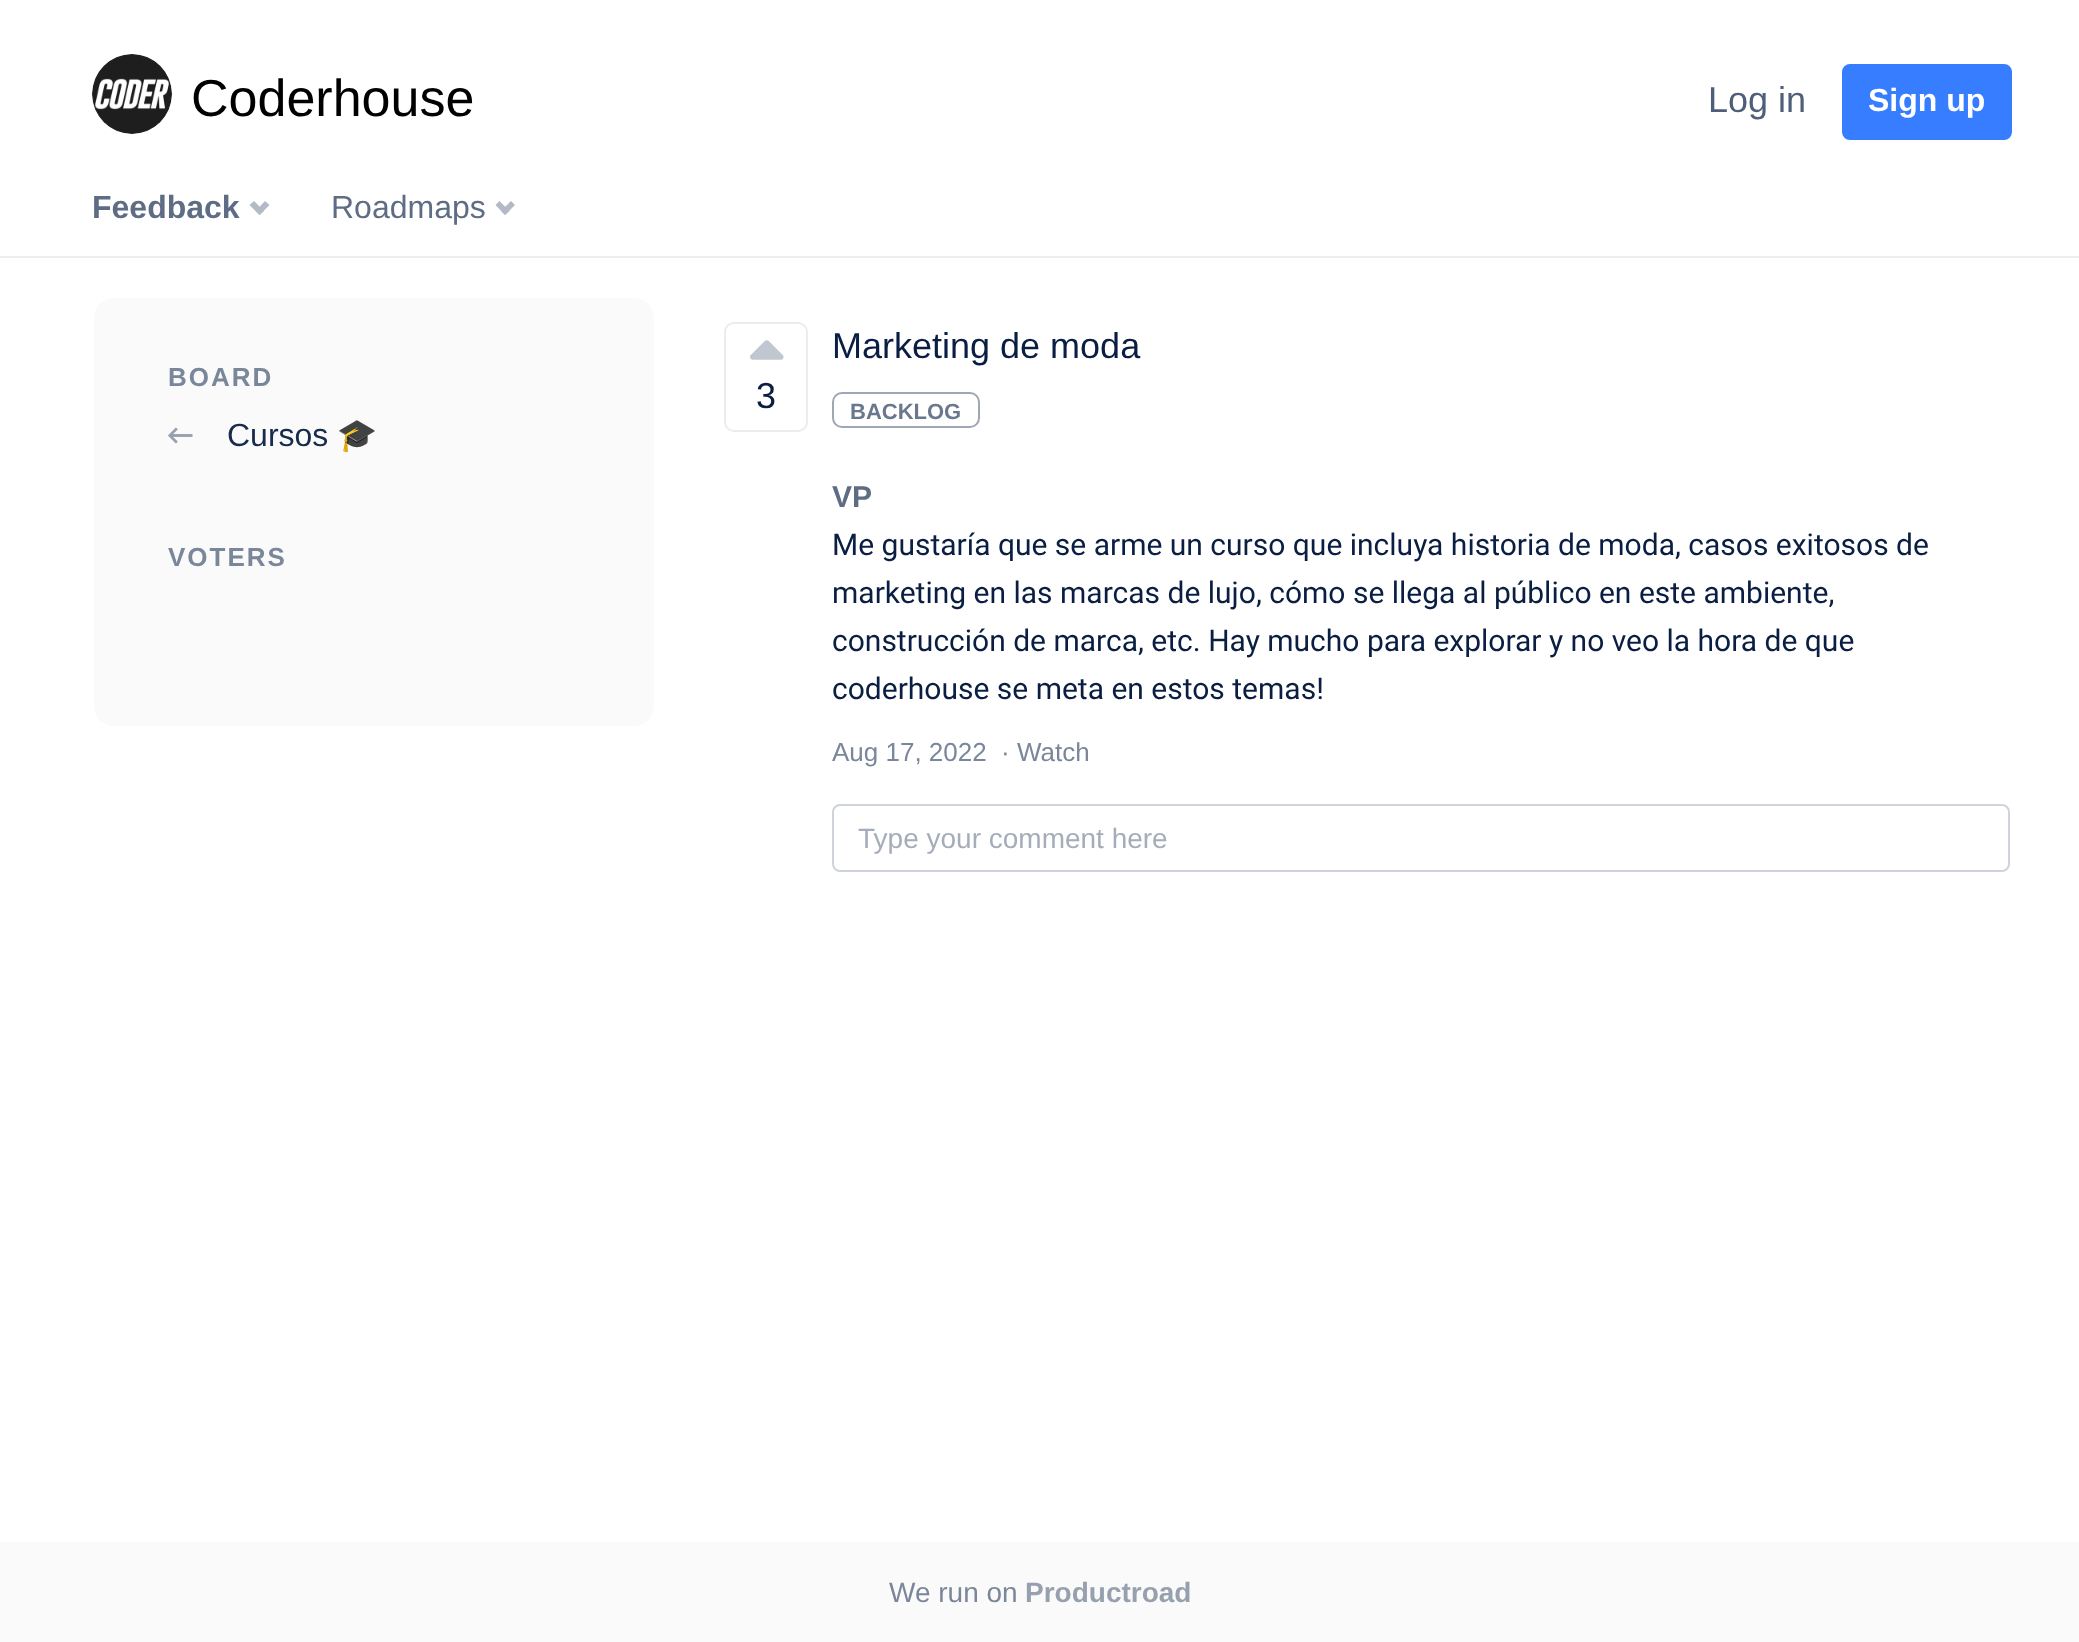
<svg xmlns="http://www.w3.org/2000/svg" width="2079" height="1642">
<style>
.a{font:52px Liberation Sans;fill:#000}
.b{font:36px Liberation Sans;fill:#505f79}
.c{font:bold 32px Liberation Sans;fill:#fff}
.d{font:bold 32px Liberation Sans;fill:#5e6c84}
.e{font:32px Liberation Sans;fill:#5e6c84}
.f{font:bold 26px Liberation Sans;letter-spacing:2px;fill:#7a869a}
.g{font:32px Liberation Sans;fill:#172b4d}
.h{font:32px Noto Color Emoji;fill:#172b4d}
.i{font:36px Liberation Sans;fill:#091e42}
.j{font:bold 22px Liberation Sans;fill:#6b778c}
.k{font:bold 30px Liberation Sans;fill:#5e6c84}
.l{font:30px Roboto;fill:#091e42}
.m{font:26px Liberation Sans;fill:#7a869a}
.n{font:28px Liberation Sans;fill:#a5adba}
.o{font:28px Liberation Sans;fill:#7a869a}
.p{font:bold 28px Liberation Sans;fill:#97a0af}
</style>
<rect width="100%" height="100%" fill="#fff"/>
<image href="1.png" x="92" y="54" width="80" height="80"/>
<rect fill="#377dff" stroke="#377dff" stroke-width="2" x="1843" y="65" width="168" height="74" rx="7"/>
<path fill="#edeef0" d="M0 256h2079v2H0z"/>
<path fill="#b3bac5" d="M265 201l4.5 4l-10 10l-4-4z"/>
<path fill="#b3bac5" d="M254 201l10 10l-4.5 4l-10-10z"/>
<path fill="#b3bac5" d="M511 201l4 4l-10 10l-4-4z"/>
<path fill="#b3bac5" d="M499.5 201l10 10l-4.5 4l-9.5-10z"/>
<rect fill="#fafafa" x="94" y="298" width="560" height="428" rx="20"/>
<image href="2.png" x="168" y="427" width="25" height="17"/>
<rect fill="none" stroke="#ebecf0" stroke-width="2" x="725" y="323" width="82" height="108" rx="9"/>
<image href="3.png" x="750" y="340" width="34" height="20"/>
<rect fill="none" stroke="#9fa7b4" stroke-width="2" x="833" y="393" width="146" height="34" rx="9"/>
<rect fill="none" stroke="#ced4da" stroke-width="2" x="833" y="805" width="1176" height="66" rx="7"/>
<path fill="#fafafa" d="M0 1542h2079v100H0z"/>
<text class="a" x="191" y="116">Coderhouse</text>
<text class="b" x="1708" y="112">Log in</text>
<text class="c" x="1868" y="111">Sign up</text>
<text class="d" x="92" y="218">Feedback</text>
<text class="e" x="331" y="218">Roadmaps</text>
<text class="f" x="168" y="386">BOARD</text>
<text class="g" x="227" y="446">Cursos</text>
<text class="h" x="337" y="446">🎓</text>
<text class="f" x="168" y="566">VOTERS</text>
<text class="i" x="756" y="408">3</text>
<text class="i" x="832" y="358">Marketing de moda</text>
<text class="j" x="850" y="419">BACKLOG</text>
<text class="k" x="832" y="507">VP</text>
<text class="l" x="832" y="555">Me gustaría que se arme un curso que incluya historia de moda, casos exitosos de</text>
<text class="l" x="832" y="603">marketing en las marcas de lujo, cómo se llega al público en este ambiente,</text>
<text class="l" x="832" y="651">construcción de marca, etc. Hay mucho para explorar y no veo la hora de que</text>
<text class="l" x="832" y="699">coderhouse se meta en estos temas!</text>
<text class="m" x="832" y="761">Aug 17, 2022</text>
<text class="m" x="1001" y="761">· Watch</text>
<text class="n" x="858" y="848">Type your comment here</text>
<text class="o" x="889" y="1602">We run on</text>
<text class="p" x="1025" y="1602">Productroad</text>
</svg>
